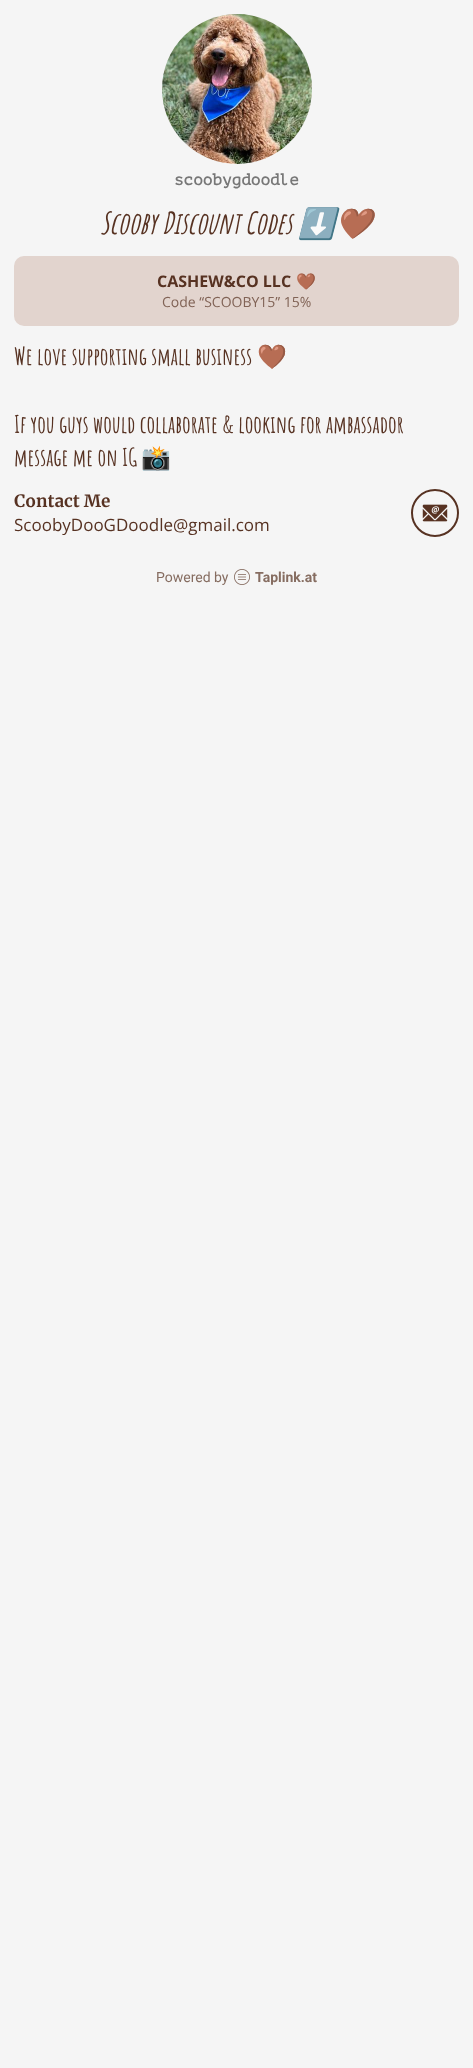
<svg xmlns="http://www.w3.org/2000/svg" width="473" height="2068">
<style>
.a{font:bold 16px PT Mono;fill:#777}
.b{font:italic bold 30px Amatic SC;fill:#573222}
.c{font:italic bold 30px Noto Color Emoji;fill:#573222}
.d{font:bold 16px Open Sans;fill:#573222}
.e{font:bold 16px Noto Color Emoji;fill:#573222}
.f{font:14px Open Sans;fill:#816356}
.g{font:bold 24px Amatic SC;fill:#573222}
.h{font:bold 24px Noto Color Emoji;fill:#573222}
.i{font:bold 17px Merriweather;fill:#573222}
.j{font:17px Open Sans;fill:#573222}
.k{font:14px Roboto;fill:#866d61}
.l{font:bold 14px Roboto;fill:#866d61}
</style>
<rect width="100%" height="100%" fill="#f5f5f5"/>
<image href="1.png" x="162" y="14" width="150" height="150"/>
<rect fill="#e2d4ce" stroke="#e2d4ce" stroke-width="2" x="15" y="257" width="443" height="68" rx="9"/>
<circle fill="none" stroke="#573222" stroke-width="2" cx="435" cy="513" r="23"/>
<image href="2.png" x="422" y="504" width="26" height="18"/>
<image href="3.png" x="234" y="569" width="16" height="16"/>
<text class="a" x="174" y="185">scoobygdoodle</text>
<text class="b" x="100" y="234">Scooby Discount Codes</text>
<text class="c" x="298" y="234">⬇️🤎</text>
<text class="d" x="157" y="287">CASHEW&amp;CO LLC</text>
<text class="e" x="296" y="287">🤎</text>
<text class="f" x="162" y="307">Code “SCOOBY15” 15%</text>
<text class="g" x="14" y="365">We love supporting small business</text>
<text class="h" x="257" y="365">🤎</text>
<text class="g" x="14" y="433">If you guys would collaborate &amp; looking for ambassador</text>
<text class="g" x="14" y="466">message me on IG</text>
<text class="h" x="141" y="466">📸</text>
<text class="i" x="14" y="507">Contact Me</text>
<text class="j" x="14" y="531">ScoobyDooGDoodle@gmail.com</text>
<text class="k" x="156" y="582">Powered by</text>
<text class="l" x="255" y="582">Taplink.at</text>
</svg>
